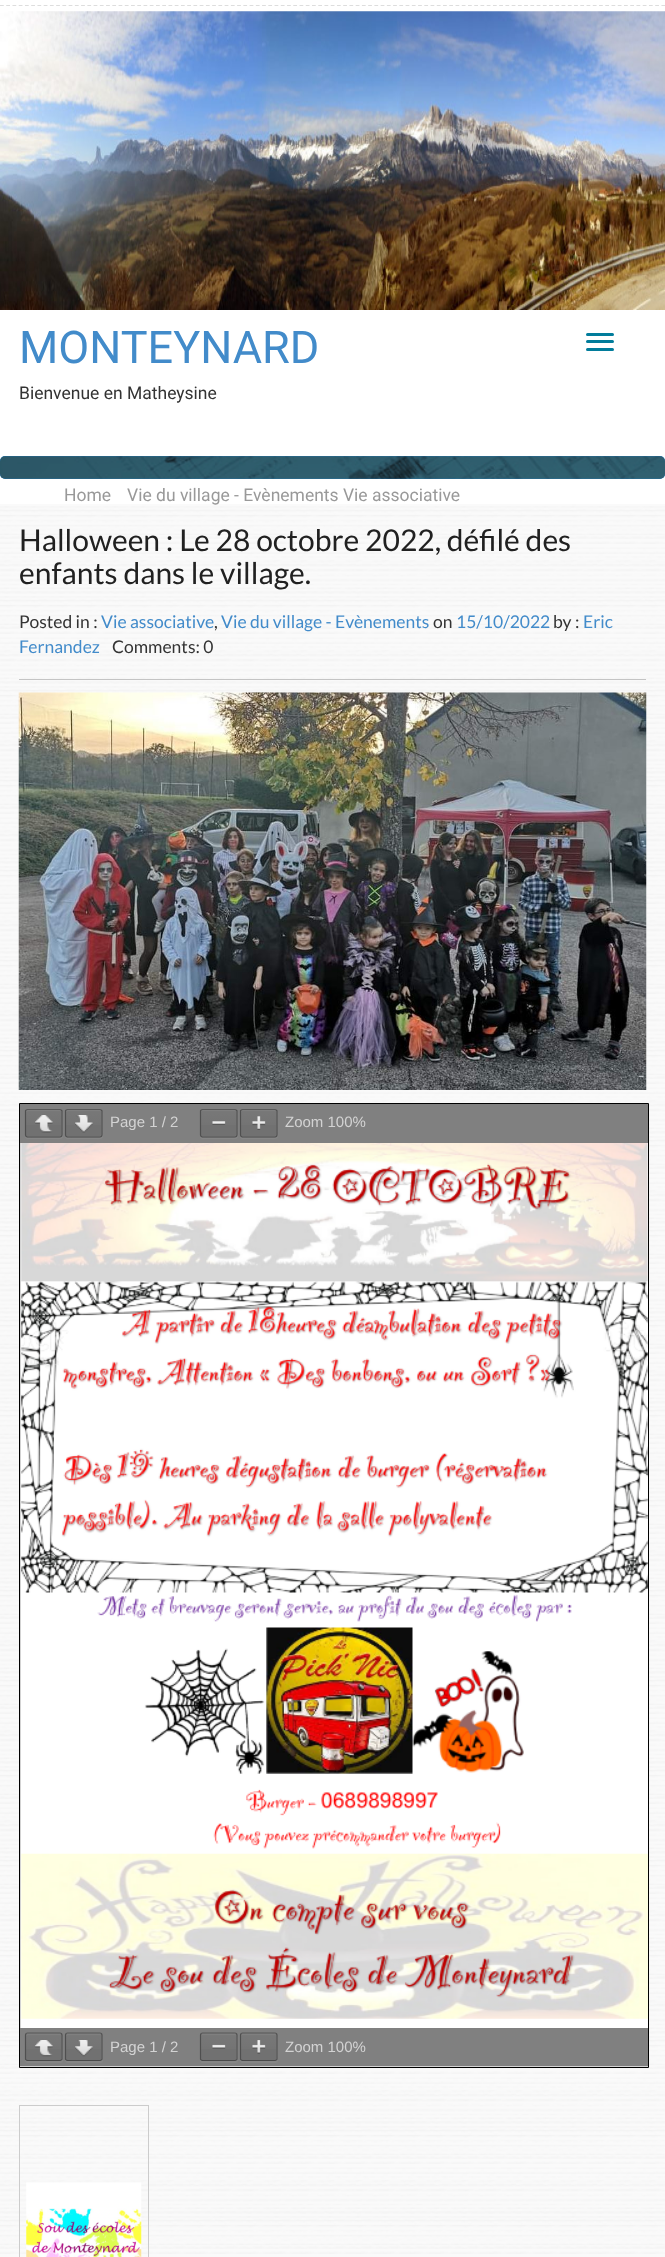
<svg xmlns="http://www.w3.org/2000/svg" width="665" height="2257">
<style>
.a{font:45px Roboto;fill:#428bca}
.b{font:17.5px Roboto;fill:#333}
.c{font:17.5px Roboto;fill:#999}
.d{font:30px Lato;fill:#212121}
.e{font:17.5px Lato;fill:#333}
.f{font:17.5px Lato;fill:#428bca}
.g{font:15px Liberation Sans;fill:#d3d3d3}
</style>
<defs>
<linearGradient id="g1" gradientUnits="userSpaceOnUse" x1="44" y1="1110" x2="44" y2="1136"><stop offset="0" stop-color="#fff" stop-opacity="0.05"/><stop offset="1" stop-color="#fff" stop-opacity="0"/></linearGradient>
<linearGradient id="g2" gradientUnits="userSpaceOnUse" x1="84" y1="1110" x2="84" y2="1136"><stop offset="0" stop-color="#fff" stop-opacity="0.05"/><stop offset="1" stop-color="#fff" stop-opacity="0"/></linearGradient>
<linearGradient id="g3" gradientUnits="userSpaceOnUse" x1="219" y1="1110" x2="219" y2="1136"><stop offset="0" stop-color="#fff" stop-opacity="0.05"/><stop offset="1" stop-color="#fff" stop-opacity="0"/></linearGradient>
<linearGradient id="g4" gradientUnits="userSpaceOnUse" x1="259" y1="1110" x2="259" y2="1136"><stop offset="0" stop-color="#fff" stop-opacity="0.05"/><stop offset="1" stop-color="#fff" stop-opacity="0"/></linearGradient>
<linearGradient id="g5" gradientUnits="userSpaceOnUse" x1="44" y1="2034" x2="44" y2="2060"><stop offset="0" stop-color="#fff" stop-opacity="0.05"/><stop offset="1" stop-color="#fff" stop-opacity="0"/></linearGradient>
<linearGradient id="g6" gradientUnits="userSpaceOnUse" x1="84" y1="2034" x2="84" y2="2060"><stop offset="0" stop-color="#fff" stop-opacity="0.05"/><stop offset="1" stop-color="#fff" stop-opacity="0"/></linearGradient>
<linearGradient id="g7" gradientUnits="userSpaceOnUse" x1="219" y1="2034" x2="219" y2="2060"><stop offset="0" stop-color="#fff" stop-opacity="0.05"/><stop offset="1" stop-color="#fff" stop-opacity="0"/></linearGradient>
<linearGradient id="g8" gradientUnits="userSpaceOnUse" x1="259" y1="2034" x2="259" y2="2060"><stop offset="0" stop-color="#fff" stop-opacity="0.05"/><stop offset="1" stop-color="#fff" stop-opacity="0"/></linearGradient>
</defs>
<rect width="100%" height="100%" fill="#fff"/>
<path fill="none" stroke="#ddd" stroke-width="1.2" stroke-dasharray="3.75 2.49" d="M0 5.5h665"/>
<image href="1.png" x="0" y="11" width="665" height="299"/>
<rect fill="#017c9b" x="586" y="333" width="28" height="3" rx="1.5"/>
<rect fill="#017c9b" x="586" y="340" width="28" height="3" rx="1.5"/>
<rect fill="#017c9b" x="586" y="348" width="28" height="3" rx="1.5"/>
<rect fill="#1e7fcb" y="456" width="665" height="23" rx="5"/>
<image href="2.png" x="0" y="456" width="665" height="23"/>
<image href="3.png" x="0" y="504" width="665" height="1753"/>
<path fill="#c4c4c4" d="M19 679h627v1H19z"/>
<image href="4.png" x="18" y="692" width="629" height="398"/>
<path fill="#d3d3d3" d="M20 1143h628v924H20z"/>
<path fill="none" stroke="#000" d="M19.5 1103.5h629v964H19.5z"/>
<path fill="#808080" d="M20 1104h628v39H20z"/>
<path fill="#868686" d="M25 1135c0 5.5 3 4 8 4h16.5c16.5 0 13.5 2.5 13.5-14.5v-8c0-1 .5-4-.5-5.5v16c0 10.5 2 10.5-8 10.5h-21.5c-1.5 0-8 1.5-8-2.5z"/>
<rect fill="#717171" x="26" y="1110" width="35" height="26" rx="1"/>
<path fill="url(#g1)" d="M26 1110h35v15H26z"/>
<path fill="#7f7f7f" d="M28 1111h32c1 0 1 1 1 1c0-3.5-3-2-6.5-2h-22c-3.5 0-6.5-1.5-6.5 2z"/>
<path fill="none" stroke="#575757" stroke-width="1.2" d="M26 1110l1.5-.5h32.5l1.5 .5"/>
<path fill="none" stroke="#00000061" stroke-width="1.2" d="M61.5 1110l.5 1v24l-.5 1.5"/>
<path fill="none" stroke="#0000006b" stroke-width="1.2" d="M61.5 1136.5l-1.5 .5h-32.5l-1.5-.5"/>
<path fill="none" stroke="#4f4f4f" stroke-width="1.2" d="M26 1136.5l-.5-1.5v-24l.5-1"/>
<image href="5.png" x="35" y="1115" width="18" height="18"/>
<path fill="#868686" d="M65 1135c0 5.5 3 4 8 4h16.5c16.5 0 13.5 2.5 13.5-14.5v-8c0-1 .5-4-.5-5.5v16c0 10.5 2 10.5-8 10.5h-21.5c-1.5 0-8 1.5-8-2.5z"/>
<rect fill="#717171" x="66" y="1110" width="35" height="26" rx="1"/>
<path fill="url(#g2)" d="M66 1110h35v15H66z"/>
<path fill="#7f7f7f" d="M68 1111h32c1 0 1 1 1 1c0-3.5-3-2-6.5-2h-22c-3.5 0-6.5-1.5-6.5 2z"/>
<path fill="none" stroke="#575757" stroke-width="1.2" d="M66 1110l1.5-.5h32.5l1.5 .5"/>
<path fill="none" stroke="#00000061" stroke-width="1.2" d="M101.5 1110l.5 1v24l-.5 1.5"/>
<path fill="none" stroke="#0000006b" stroke-width="1.2" d="M101.5 1136.5l-1.5 .5h-32.5l-1.5-.5"/>
<path fill="none" stroke="#4f4f4f" stroke-width="1.2" d="M66 1136.5l-.5-1.5v-24l.5-1"/>
<image href="6.png" x="75" y="1115" width="18" height="18"/>
<path fill="#868686" d="M200 1135c0 5.5 3 4 8 4h16.5c16.5 0 13.5 2.5 13.5-14.5v-8c0-1 .5-4-.5-5.5v16c0 10.5 2 10.5-8 10.5h-21.5c-1.5 0-8 1.5-8-2.5z"/>
<rect fill="#717171" x="201" y="1110" width="35" height="26" rx="1"/>
<path fill="url(#g3)" d="M201 1110h35v15H201z"/>
<path fill="#7f7f7f" d="M202 1111h33c1 0 1 1 1 1c0-3.5-3-2-6.5-2h-22c-3.5 0-6.5-1.5-6.5 2z"/>
<path fill="none" stroke="#575757" stroke-width="1.2" d="M201 1110l1.5-.5h32.5l1.5 .5"/>
<path fill="none" stroke="#00000061" stroke-width="1.2" d="M236.5 1110l.5 1v24l-.5 1.5"/>
<path fill="none" stroke="#0000006b" stroke-width="1.2" d="M236.5 1136.5l-1.5 .5h-32.5l-1.5-.5"/>
<path fill="none" stroke="#4f4f4f" stroke-width="1.2" d="M201 1136.5l-.5-1.5v-24l.5-1"/>
<image href="7.png" x="212" y="1121" width="14" height="4"/>
<path fill="#868686" d="M240 1135c0 5.5 3 4 8 4h16.5c16.5 0 13.5 2.5 13.5-14.5v-8c0-1 .5-4-.5-5.5v16c0 10.5 2 10.5-8 10.5h-21.5c-1.5 0-8 1.5-8-2.5z"/>
<rect fill="#717171" x="241" y="1110" width="35" height="26" rx="1"/>
<path fill="url(#g4)" d="M241 1110h35v15H241z"/>
<path fill="#7f7f7f" d="M242 1111h33c1 0 1 1 1 1c0-3.5-3-2-6.5-2h-22c-3.5 0-6.5-1.5-6.5 2z"/>
<path fill="none" stroke="#575757" stroke-width="1.2" d="M241 1110l1.5-.5h32.5l1.5 .5"/>
<path fill="none" stroke="#00000061" stroke-width="1.2" d="M276.5 1110l.5 1v24l-.5 1.5"/>
<path fill="none" stroke="#0000006b" stroke-width="1.2" d="M276.5 1136.5l-1.5 .5h-32.5l-1.5-.5"/>
<path fill="none" stroke="#4f4f4f" stroke-width="1.2" d="M241 1136.5l-.5-1.5v-24l.5-1"/>
<image href="8.png" x="252" y="1116" width="14" height="14"/>
<path fill="#fff" d="M21 1143h627v885H21z"/>
<image href="9.png" x="21" y="1143" width="627" height="876"/>
<path fill="#808080" d="M20 2028h628v38H20z"/>
<path fill="#868686" d="M25 2059v1.5c0 1.5 1 2.5 2.5 2.5h33c1.5 0 2.5-1 2.5-2.5v-24l-.5-1.5v24c0 1-1 2-2.5 2h-32.5c-1.5 0-2.5-1-2.5-2z"/>
<rect fill="#717171" x="26" y="2034" width="35" height="26" rx="1"/>
<path fill="url(#g5)" d="M26 2034h35v15H26z"/>
<path fill="#7f7f7f" d="M28 2035h32c1 0 1 1 1 1c0-3.5-3-2-6.5-2h-22c-3.5 0-6.5-1.5-6.5 2z"/>
<path fill="none" stroke="#575757" stroke-width="1.2" d="M26 2033.5l1.5-.5h32.5l1.5 .5"/>
<path fill="none" stroke="#00000061" stroke-width="1.2" d="M61.5 2033.5l.5 1.5v24l-.5 1"/>
<path fill="none" stroke="#4a4a4a" stroke-width="1.2" d="M61.5 2060l-1.5 .5h-32.5l-1.5-.5"/>
<path fill="none" stroke="#4f4f4f" stroke-width="1.2" d="M26 2060l-.5-1v-24l.5-1.5"/>
<image href="10.png" x="34" y="2040" width="19" height="17"/>
<path fill="#868686" d="M65 2059v1.5c0 1.5 1 2.5 2.5 2.5h33c1.5 0 2.5-1 2.5-2.5v-24l-.5-1.5v24c0 1-1 2-2.5 2h-32.5c-1.5 0-2.5-1-2.5-2z"/>
<rect fill="#717171" x="66" y="2034" width="35" height="26" rx="1"/>
<path fill="url(#g6)" d="M66 2034h35v15H66z"/>
<path fill="#7f7f7f" d="M68 2035h32c1 0 1 1 1 1c0-3.5-3-2-6.5-2h-22c-3.5 0-6.5-1.5-6.5 2z"/>
<path fill="none" stroke="#575757" stroke-width="1.2" d="M66 2033.5l1.5-.5h32.5l1.5 .5"/>
<path fill="none" stroke="#00000061" stroke-width="1.2" d="M101.5 2033.5l.5 1.5v24l-.5 1"/>
<path fill="none" stroke="#4a4a4a" stroke-width="1.2" d="M101.5 2060l-1.5 .5h-32.5l-1.5-.5"/>
<path fill="none" stroke="#4f4f4f" stroke-width="1.2" d="M66 2060l-.5-1v-24l.5-1.5"/>
<image href="11.png" x="75" y="2040" width="18" height="17"/>
<path fill="#868686" d="M200 2059v1.5c0 1.5 1 2.5 2.5 2.5h33c1.5 0 2.5-1 2.5-2.5v-24l-.5-1.5v24c0 1-1 2-2.5 2h-32.5c-1.5 0-2.5-1-2.5-2z"/>
<rect fill="#717171" x="201" y="2034" width="35" height="26" rx="1"/>
<path fill="url(#g7)" d="M201 2034h35v15H201z"/>
<path fill="#7f7f7f" d="M202 2035h33c1 0 1 1 1 1c0-3.5-3-2-6.5-2h-22c-3.5 0-6.5-1.5-6.5 2z"/>
<path fill="none" stroke="#575757" stroke-width="1.2" d="M201 2033.5l1.5-.5h32.5l1.5 .5"/>
<path fill="none" stroke="#00000061" stroke-width="1.2" d="M236.5 2033.5l.5 1.5v24l-.5 1"/>
<path fill="none" stroke="#4a4a4a" stroke-width="1.2" d="M236.5 2060l-1.5 .5h-32.5l-1.5-.5"/>
<path fill="none" stroke="#4f4f4f" stroke-width="1.2" d="M201 2060l-.5-1v-24l.5-1.5"/>
<image href="12.png" x="212" y="2044" width="14" height="5"/>
<path fill="#868686" d="M240 2059v1.5c0 1.5 1 2.5 2.5 2.5h33c1.5 0 2.5-1 2.5-2.5v-24l-.5-1.5v24c0 1-1 2-2.5 2h-32.5c-1.5 0-2.5-1-2.5-2z"/>
<rect fill="#717171" x="241" y="2034" width="35" height="26" rx="1"/>
<path fill="url(#g8)" d="M241 2034h35v15H241z"/>
<path fill="#7f7f7f" d="M242 2035h33c1 0 1 1 1 1c0-3.5-3-2-6.5-2h-22c-3.5 0-6.5-1.5-6.5 2z"/>
<path fill="none" stroke="#575757" stroke-width="1.2" d="M241 2033.5l1.5-.5h32.5l1.5 .5"/>
<path fill="none" stroke="#00000061" stroke-width="1.2" d="M276.5 2033.5l.5 1.5v24l-.5 1"/>
<path fill="none" stroke="#4a4a4a" stroke-width="1.2" d="M276.5 2060l-1.5 .5h-32.5l-1.5-.5"/>
<path fill="none" stroke="#4f4f4f" stroke-width="1.2" d="M241 2060l-.5-1v-24l.5-1.5"/>
<image href="13.png" x="252" y="2040" width="14" height="14"/>
<path fill="#ccc" d="M19 2105h130v1H19z"/>
<path fill="#ccc" d="M148 2105h1v152H148z"/>
<path fill="#ccc" d="M19 2105h1v152H19z"/>
<image href="14.png" x="26" y="2182" width="116" height="75"/>
<text class="a" x="19" y="363">MONTEYNARD</text>
<text class="b" x="19" y="399">Bienvenue en Matheysine</text>
<text class="c" x="64" y="501">Home</text>
<text class="c" x="127" y="501">Vie du village - Evènements Vie associative</text>
<text class="d" x="19" y="551">Halloween : Le 28 octobre 2022, défilé des</text>
<text class="d" x="19" y="584">enfants dans le village.</text>
<text class="e" x="19" y="628">Posted in :</text>
<text class="f" x="101" y="628">Vie associative</text>
<text class="e" x="214" y="628">,</text>
<text class="f" x="221" y="628">Vie du village - Evènements</text>
<text class="e" x="433" y="628">on</text>
<text class="f" x="456" y="628">15/10/2022</text>
<text class="e" x="553" y="628">by :</text>
<text class="f" x="583" y="628">Eric</text>
<text class="f" x="19" y="653">Fernandez</text>
<text class="e" x="112" y="653">Comments: 0</text>
<text class="g" x="110" y="1127">Page 1 / 2</text>
<text class="g" x="285" y="1127">Zoom 100%</text>
<text class="g" x="110" y="2052">Page 1 / 2</text>
<text class="g" x="285" y="2052">Zoom 100%</text>
</svg>
